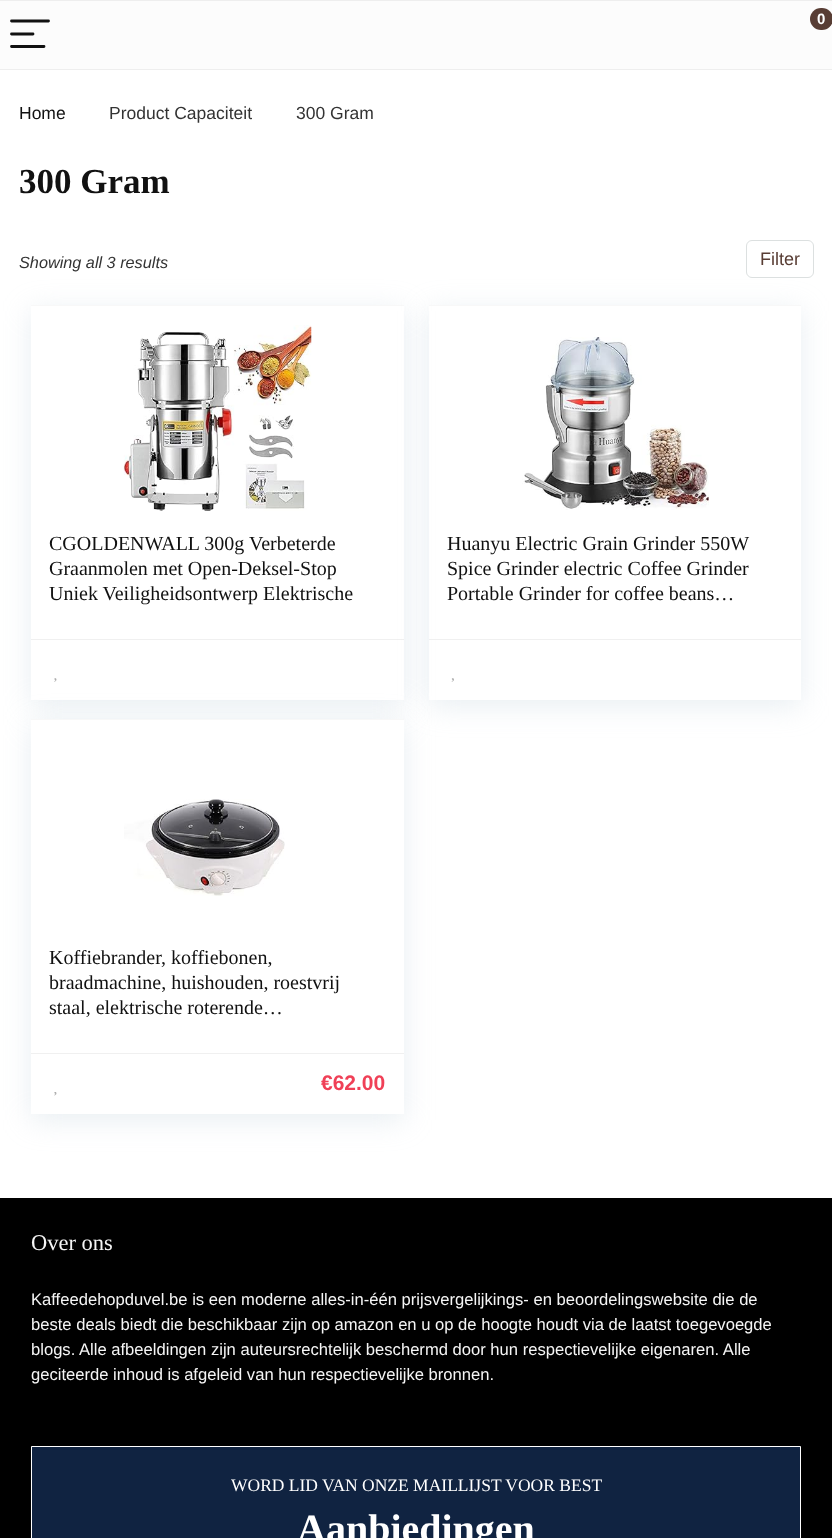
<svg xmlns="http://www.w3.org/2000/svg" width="832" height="1538">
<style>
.a{font:bold 15px Liberation Sans;fill:#fff}
.b{font:17.5px Liberation Sans;fill:#111}
.c{font:17.5px Liberation Sans;fill:#333}
.d{font:bold 35px Liberation Serif;fill:#111}
.e{font:italic 16.25px Liberation Sans;fill:#333}
.f{font:18px Liberation Sans;fill:#583d34}
.g{font:20px Liberation Serif;fill:#111}
.h{font:bold 21px Liberation Sans;fill:#f04057}
.i{font:22.5px Liberation Serif;fill:#f5f5f5}
.j{font:16.6px Liberation Sans;fill:#f5f5f5}
.k{font:17.5px Liberation Serif;fill:#fff}
.l{font:bold 40px Liberation Serif;fill:#fff}
</style>
<defs>
<clipPath id="clip1"><path d="M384 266h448v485h-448zm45 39h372v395h-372z" clip-rule="evenodd"/></clipPath>
</defs>
<rect width="100%" height="100%" fill="#fff"/>
<path fill="#fcfcfc" d="M0 1h832v68H0z"/>
<path fill="#eee" d="M0 0h832v1H0z"/>
<path fill="#eee" d="M0 69h832v1H0z"/>
<path fill="none" stroke="#111" stroke-width="2.8" stroke-linecap="round" d="M11.5 21h37m-37 13h21.5m-21.5 12.5h32.5"/>
<rect fill="#583d34" x="810" y="8" width="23" height="22" rx="11"/>
<rect fill="none" stroke="#dce0e0" x="746.5" y="240.5" width="67" height="37" rx="5.5"/>
<path fill="#bccfdb59" filter="blur(14.5px)" d="M31 311h373v395H31z"/>
<path fill="#fff" d="M31 306h373v394H31z"/>
<path fill="#f8f8f8" d="M31 305h373v1H31z"/>
<image href="1.png" x="123" y="325" width="189" height="186"/>
<path fill="#f0f0f0" d="M31 639h373v1H31z"/>
<path fill="#bccfdb59" filter="blur(14.5px)" d="M31 725h373v395H31z"/>
<image href="2.png" x="54" y="678" width="3" height="4"/>
<g clip-path="url(#clip1)">
<path fill="#bccfdb59" filter="blur(14.5px)" d="M429 311h372v395H429z"/>
</g>
<path fill="#f8f8f8" d="M429 305h372v1H429z"/>
<image href="3.png" x="522" y="337" width="187" height="173"/>
<path fill="#f0f0f0" d="M429 639h372v1H429z"/>
<image href="4.png" x="451" y="678" width="3" height="4"/>
<path fill="#fff" d="M31 720h373v394H31z"/>
<path fill="#f8f8f8" d="M31 719h373v1H31z"/>
<image href="5.png" x="124" y="799" width="161" height="97"/>
<path fill="#f0f0f0" d="M31 1053h373v1H31z"/>
<image href="6.png" x="54" y="1092" width="3" height="4"/>
<path fill="#000" d="M0 1198h832v340H0z"/>
<path fill="#102341" stroke="#fff" d="M31.5 1446.5h769v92H31.5z"/>
<text class="a" x="817" y="24">0</text>
<text class="b" x="19" y="119">Home</text>
<text class="c" x="109" y="119">Product Capaciteit</text>
<text class="c" x="296" y="119">300 Gram</text>
<text class="d" x="19" y="193">300 Gram</text>
<text class="e" x="19" y="268">Showing all 3 results</text>
<text class="f" x="760" y="265">Filter</text>
<text class="g" x="49" y="550">CGOLDENWALL 300g Verbeterde</text>
<text class="g" x="49" y="575">Graanmolen met Open-Deksel-Stop</text>
<text class="g" x="49" y="600">Uniek Veiligheidsontwerp Elektrische</text>
<text class="g" x="447" y="550">Huanyu Electric Grain Grinder 550W</text>
<text class="g" x="447" y="575">Spice Grinder electric Coffee Grinder</text>
<text class="g" x="447" y="600">Portable Grinder for coffee beans…</text>
<text class="g" x="49" y="964">Koffiebrander, koffiebonen,</text>
<text class="g" x="49" y="989">braadmachine, huishouden, roestvrij</text>
<text class="g" x="49" y="1014">staal, elektrische roterende…</text>
<text class="h" x="321" y="1090">€62.00</text>
<text class="i" x="31" y="1250">Over ons</text>
<text class="j" x="31" y="1305">Kaffeedehopduvel.be is een moderne alles-in-één prijsvergelijkings- en beoordelingswebsite die de</text>
<text class="j" x="31" y="1330">beste deals biedt die beschikbaar zijn op amazon en u op de hoogte houdt via de laatst toegevoegde</text>
<text class="j" x="31" y="1355">blogs. Alle afbeeldingen zijn auteursrechtelijk beschermd door hun respectievelijke eigenaren. Alle</text>
<text class="j" x="31" y="1380">geciteerde inhoud is afgeleid van hun respectievelijke bronnen.</text>
<text class="k" x="231" y="1491">WORD LID VAN ONZE MAILLIJST VOOR BEST</text>
<text class="l" x="297" y="1542">Aanbiedingen</text>
</svg>
